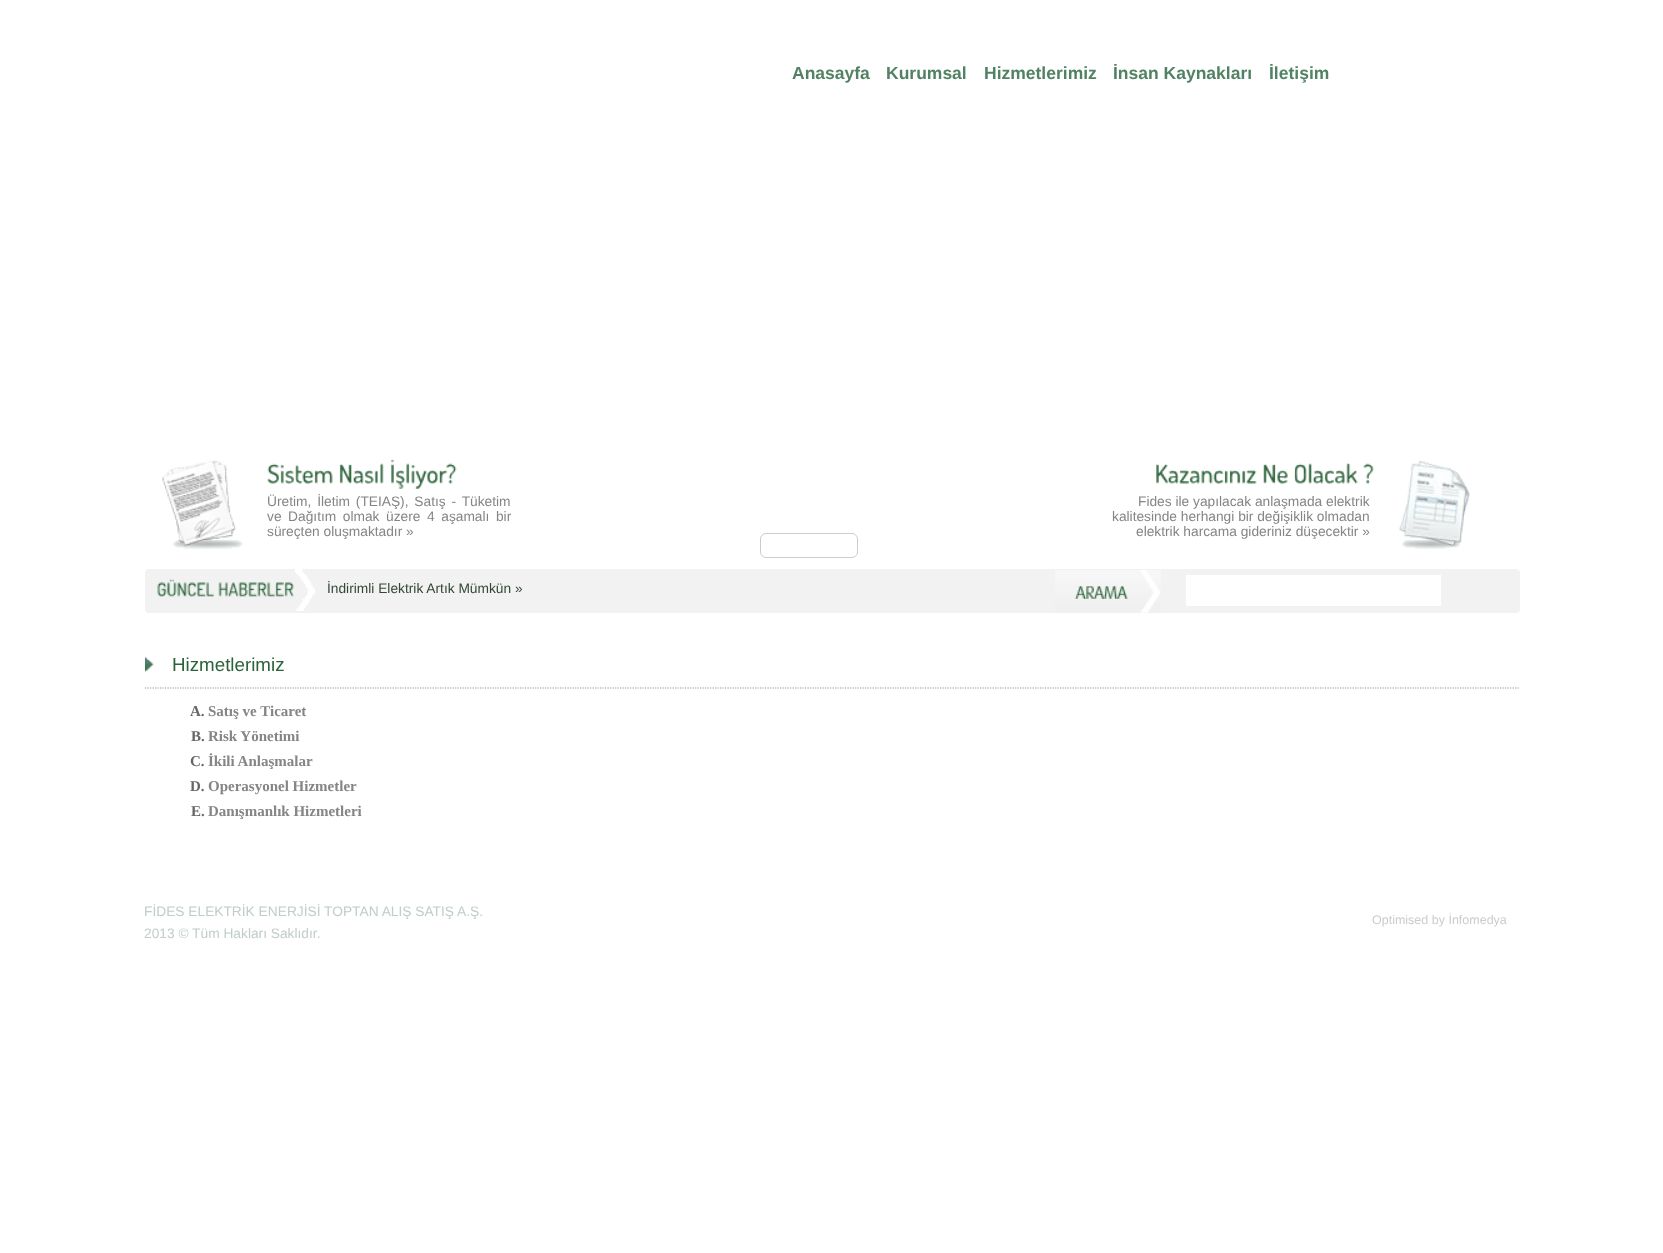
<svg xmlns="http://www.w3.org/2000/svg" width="1663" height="1253">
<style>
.a{font:bold 17.5px Liberation Sans;fill:#528264}
.b{font:13.75px Liberation Sans;fill:#868585}
.c{font:13.75px Liberation Sans;fill:#334737}
.d{font:18.75px Liberation Sans;fill:#2b6238}
.e{font:bold 15px Liberation Serif;fill:#666}
.f{font:bold 15px Liberation Serif;fill:#868585}
.g{font:13.75px Liberation Sans;fill:#c1cccc}
.h{font:12.5px Liberation Sans;fill:#ccc}
</style>
<rect width="100%" height="100%" fill="#fff"/>
<image href="1.png" x="161" y="460" width="82" height="89"/>
<image href="2.png" x="267" y="463" width="66" height="21"/>
<image href="3.png" x="339" y="463" width="45" height="21"/>
<image href="4.png" x="391" y="459" width="66" height="30"/>
<image href="5.png" x="1156" y="463" width="101" height="21"/>
<image href="6.png" x="1263" y="463" width="25" height="21"/>
<image href="7.png" x="1294" y="463" width="64" height="21"/>
<image href="8.png" x="1363" y="463" width="11" height="21"/>
<image href="9.png" x="1398" y="460" width="72" height="89"/>
<rect fill="none" stroke="#ccc" x="760.5" y="533.5" width="97" height="24" rx="5.5"/>
<rect fill="#f2f2f2" x="145" y="569" width="1375" height="44" rx="4"/>
<image href="10.png" x="157" y="579" width="57" height="18"/>
<image href="11.png" x="218" y="582" width="76" height="15"/>
<image href="12.png" x="295" y="569" width="20" height="42"/>
<image href="13.png" x="1055" y="570" width="106" height="43"/>
<path fill="#fff" d="M1186 575h255v31H1186z"/>
<image href="14.png" x="145" y="657" width="9" height="15"/>
<path fill="none" stroke="#999" stroke-width="1.2" stroke-dasharray="1.25 1.25" d="M145 688h1375"/>
<text class="a" x="792" y="79">Anasayfa</text>
<text class="a" x="886" y="79">Kurumsal</text>
<text class="a" x="984" y="79">Hizmetlerimiz</text>
<text class="a" x="1113" y="79">İnsan Kaynakları</text>
<text class="a" x="1269" y="79">İletişim</text>
<text class="b" x="267" y="506" word-spacing="2">Üretim, İletim (TEIAŞ), Satış - Tüketim</text>
<text class="b" x="267" y="521" word-spacing="2.75">ve Dağıtım olmak üzere 4 aşamalı bir</text>
<text class="b" x="267" y="536">süreçten oluşmaktadır »</text>
<text class="b" x="1138" y="506">Fides ile yapılacak anlaşmada elektrik</text>
<text class="b" x="1112" y="521">kalitesinde herhangi bir değişiklik olmadan</text>
<text class="b" x="1136" y="536">elektrik harcama gideriniz düşecektir »</text>
<text class="c" x="327" y="593">İndirimli Elektrik Artık Mümkün »</text>
<text class="d" x="172" y="671">Hizmetlerimiz</text>
<text class="e" x="190" y="716">A.</text>
<text class="f" x="208" y="716">Satış ve Ticaret</text>
<text class="e" x="191" y="741">B.</text>
<text class="f" x="208" y="741">Risk Yönetimi</text>
<text class="e" x="190" y="766">C.</text>
<text class="f" x="208" y="766">İkili Anlaşmalar</text>
<text class="e" x="190" y="791">D.</text>
<text class="f" x="208" y="791">Operasyonel Hizmetler</text>
<text class="e" x="191" y="816">E.</text>
<text class="f" x="208" y="816">Danışmanlık Hizmetleri</text>
<text class="g" x="144" y="916">FİDES ELEKTRİK ENERJİSİ TOPTAN ALIŞ SATIŞ A.Ş.</text>
<text class="g" x="144" y="938">2013 © Tüm Hakları Saklıdır.</text>
<text class="h" x="1372" y="924">Optimised by İnfomedya</text>
</svg>
